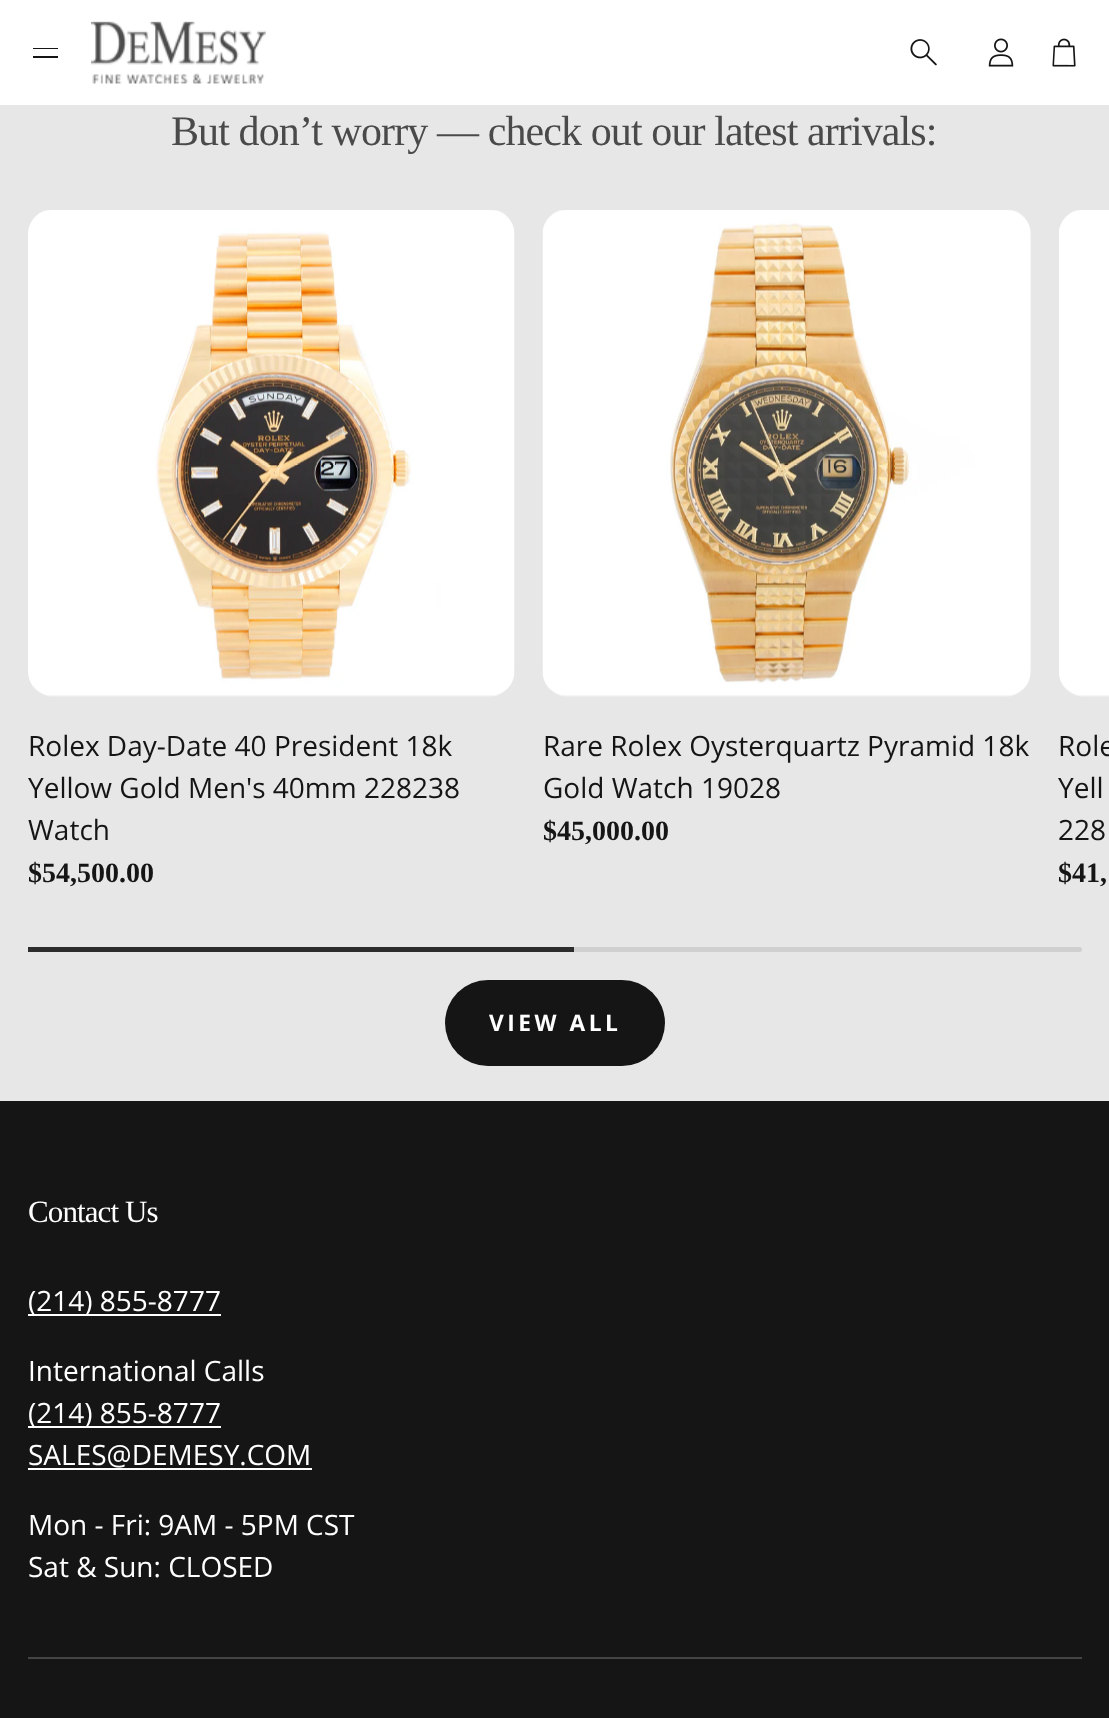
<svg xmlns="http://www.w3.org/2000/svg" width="1109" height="1718">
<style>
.a{font:42px Liberation Serif;letter-spacing:-0.9px;fill:#4a4a4a}
.b{font:28px Open Sans;fill:#151515}
.c{font:bold 28px Liberation Serif;fill:#151515}
.d{font:bold 22.75px Open Sans;letter-spacing:3.5px;fill:#fff}
.e{font:31px Liberation Serif;letter-spacing:-0.9px;fill:#fff}
.f{font:28px Open Sans;fill:#fff}
</style>
<rect width="100%" height="100%" fill="#e7e7e7"/>
<path fill="#fff" d="M0 0h1109v105H0z"/>
<path fill="#151515" d="M33 48h25v1H33z"/>
<path fill="#151515" d="M33 56h25v2H33z"/>
<image href="1.png" x="91" y="21" width="175" height="63"/>
<image href="2.png" x="910" y="39" width="27" height="27"/>
<image href="3.png" x="988" y="38" width="26" height="29"/>
<image href="4.png" x="1052" y="38" width="24" height="29"/>
<image href="5.png" x="28" y="210" width="487" height="487"/>
<image href="6.png" x="542" y="210" width="489" height="487"/>
<image href="7.png" x="1059" y="210" width="50" height="487"/>
<rect fill="#d0d0d0" x="28" y="947" width="1054" height="5" rx="2.5"/>
<path fill="#2d2d2d" d="M28 947h546v5H28z"/>
<rect fill="#151515" x="445" y="980" width="220" height="86" rx="43"/>
<path fill="#151515" d="M0 1101h1109v617H0z"/>
<path fill="#fff" d="M28 1314h193v2H28z"/>
<path fill="#fff" d="M28 1426h193v2H28z"/>
<path fill="#fff" d="M28 1468h284v2H28z"/>
<path fill="#444" d="M28 1657h1054v2H28z"/>
<text class="a" x="171" y="145">But don’t worry — check out our latest arrivals:</text>
<text class="b" x="28" y="756">Rolex Day-Date 40 President 18k</text>
<text class="b" x="28" y="798">Yellow Gold Men's 40mm 228238</text>
<text class="b" x="28" y="840">Watch</text>
<text class="c" x="28" y="882">$54,500.00</text>
<text class="b" x="543" y="756">Rare Rolex Oysterquartz Pyramid 18k</text>
<text class="b" x="543" y="798">Gold Watch 19028</text>
<text class="c" x="543" y="840">$45,000.00</text>
<text class="b" x="1058" y="756">Role</text>
<text class="b" x="1058" y="798">Yell</text>
<text class="b" x="1058" y="840">228</text>
<text class="c" x="1058" y="882">$41,</text>
<text class="d" x="489" y="1031">VIEW ALL</text>
<text class="e" x="28" y="1222">Contact Us</text>
<text class="f" x="28" y="1311">(214) 855-8777</text>
<text class="f" x="28" y="1381">International Calls</text>
<text class="f" x="28" y="1423">(214) 855-8777</text>
<text class="f" x="28" y="1465">SALES@DEMESY.COM</text>
<text class="f" x="28" y="1535">Mon - Fri: 9AM - 5PM CST</text>
<text class="f" x="28" y="1577">Sat &amp; Sun: CLOSED</text>
</svg>
